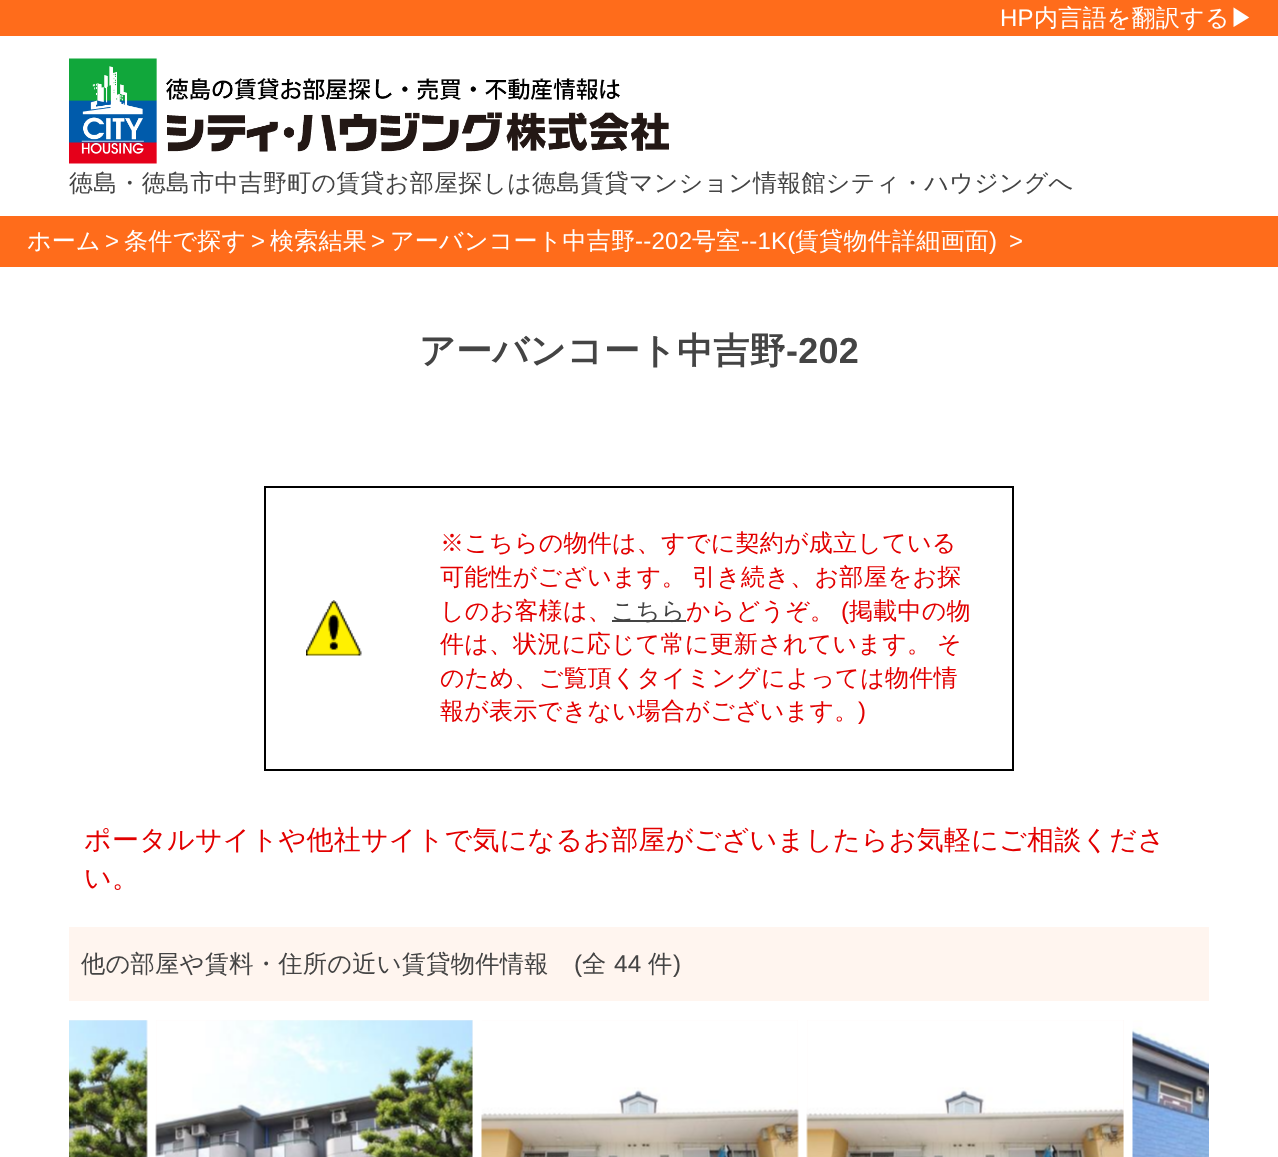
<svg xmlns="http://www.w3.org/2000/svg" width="1278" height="1157">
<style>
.a{font:24px Liberation Sans;letter-spacing:0.25px;fill:#fff}
.b{font:500 24px WenQuanYi Zen Hei;letter-spacing:0.25px;fill:#fff}
.c{font:500 24px WenQuanYi Zen Hei;letter-spacing:0.25px;fill:#444}
.d{font:bold 36px WenQuanYi Zen Hei;letter-spacing:0.25px;fill:#444}
.e{font:bold 36px Liberation Sans;letter-spacing:0.25px;fill:#444}
.f{font:500 24px WenQuanYi Zen Hei;letter-spacing:0.25px;fill:#e20000}
.g{font:24px Liberation Sans;letter-spacing:0.25px;fill:#e20000}
.h{font:500 27px WenQuanYi Zen Hei;letter-spacing:0.25px;fill:#e20000}
.i{font:500 24.25px WenQuanYi Zen Hei;letter-spacing:0.25px;fill:#444}
.j{font:24.25px Liberation Sans;letter-spacing:0.25px;fill:#444}
</style>
<rect width="100%" height="100%" fill="#fff"/>
<path fill="#ff6c1b" d="M0 0h1278v36H0z"/>
<image href="1.png" x="69" y="58" width="600" height="106"/>
<path fill="#ff6c1b" d="M0 216h1278v51H0z"/>
<path fill="none" stroke="#000" stroke-width="2" d="M265 487h748v283H265z"/>
<image href="2.png" x="306" y="600" width="56" height="56"/>
<path fill="#444" d="M612 620h74v2H612z"/>
<path fill="#fff5ef" d="M69 927h1140v74H69z"/>
<path fill="#fef8f5" d="M69 1020h78v137H69z"/>
<image href="3.png" x="69" y="1020" width="79" height="137"/>
<path fill="#fef8f5" d="M156 1020h317v137H156z"/>
<image href="4.png" x="155" y="1020" width="318" height="137"/>
<path fill="#fef8f5" d="M482 1020h316v137H482z"/>
<image href="5.png" x="481" y="1020" width="318" height="137"/>
<path fill="#fef8f5" d="M807 1020h317v137H807z"/>
<image href="6.png" x="806" y="1020" width="318" height="137"/>
<image href="7.png" x="1132" y="1020" width="77" height="137"/>
<text class="a" x="1000" y="26">HP</text>
<text class="b" x="1034" y="26">内言語を翻訳する▶</text>
<text class="c" x="69" y="191">徳島・徳島市中吉野町の賃貸お部屋探しは徳島賃貸マンション情報館シティ・ハウジングへ</text>
<text class="b" x="27" y="249">ホーム</text>
<text class="a" x="105" y="249">&gt;</text>
<text class="b" x="124" y="249">条件で探す</text>
<text class="a" x="251" y="249">&gt;</text>
<text class="b" x="270" y="249">検索結果</text>
<text class="a" x="371" y="249">&gt;</text>
<text class="b" x="390" y="249">アーバンコート中吉野</text>
<text class="a" x="635" y="249">--202</text>
<text class="b" x="692" y="249">号室</text>
<text class="a" x="741" y="249">--1K(</text>
<text class="b" x="795" y="249">賃貸物件詳細画面</text>
<text class="a" x="989" y="249">)</text>
<text class="a" x="1009" y="249">&gt;</text>
<text class="d" x="419" y="363">アーバンコート中吉野</text>
<text class="e" x="786" y="363">-202</text>
<text class="f" x="440" y="551">※こちらの物件は、すでに契約が成立している</text>
<text class="f" x="440" y="585">可能性がございます。</text>
<text class="f" x="692" y="585">引き続き、お部屋をお探</text>
<text class="f" x="440" y="619">しのお客様は、</text>
<text class="c" x="611" y="619">こちら</text>
<text class="f" x="686" y="619">からどうぞ。</text>
<text class="g" x="841" y="619">(</text>
<text class="f" x="849" y="619">掲載中の物</text>
<text class="f" x="440" y="652">件は、状況に応じて常に更新されています。</text>
<text class="f" x="937" y="652">そ</text>
<text class="f" x="440" y="686">のため、ご覧頂くタイミングによっては物件情</text>
<text class="f" x="440" y="719">報が表示できない場合がございます。</text>
<text class="g" x="858" y="719">)</text>
<text class="h" x="84" y="849">ポータルサイトや他社サイトで気になるお部屋がございましたらお気軽にご相談くださ</text>
<text class="h" x="84" y="887">い。</text>
<text class="i" x="81" y="972">他の部屋や賃料・住所の近い賃貸物件情報</text>
<text class="j" x="574" y="972">(</text>
<text class="i" x="582" y="972">全</text>
<text class="j" x="614" y="972">44</text>
<text class="i" x="648" y="972">件</text>
<text class="j" x="673" y="972">)</text>
</svg>
